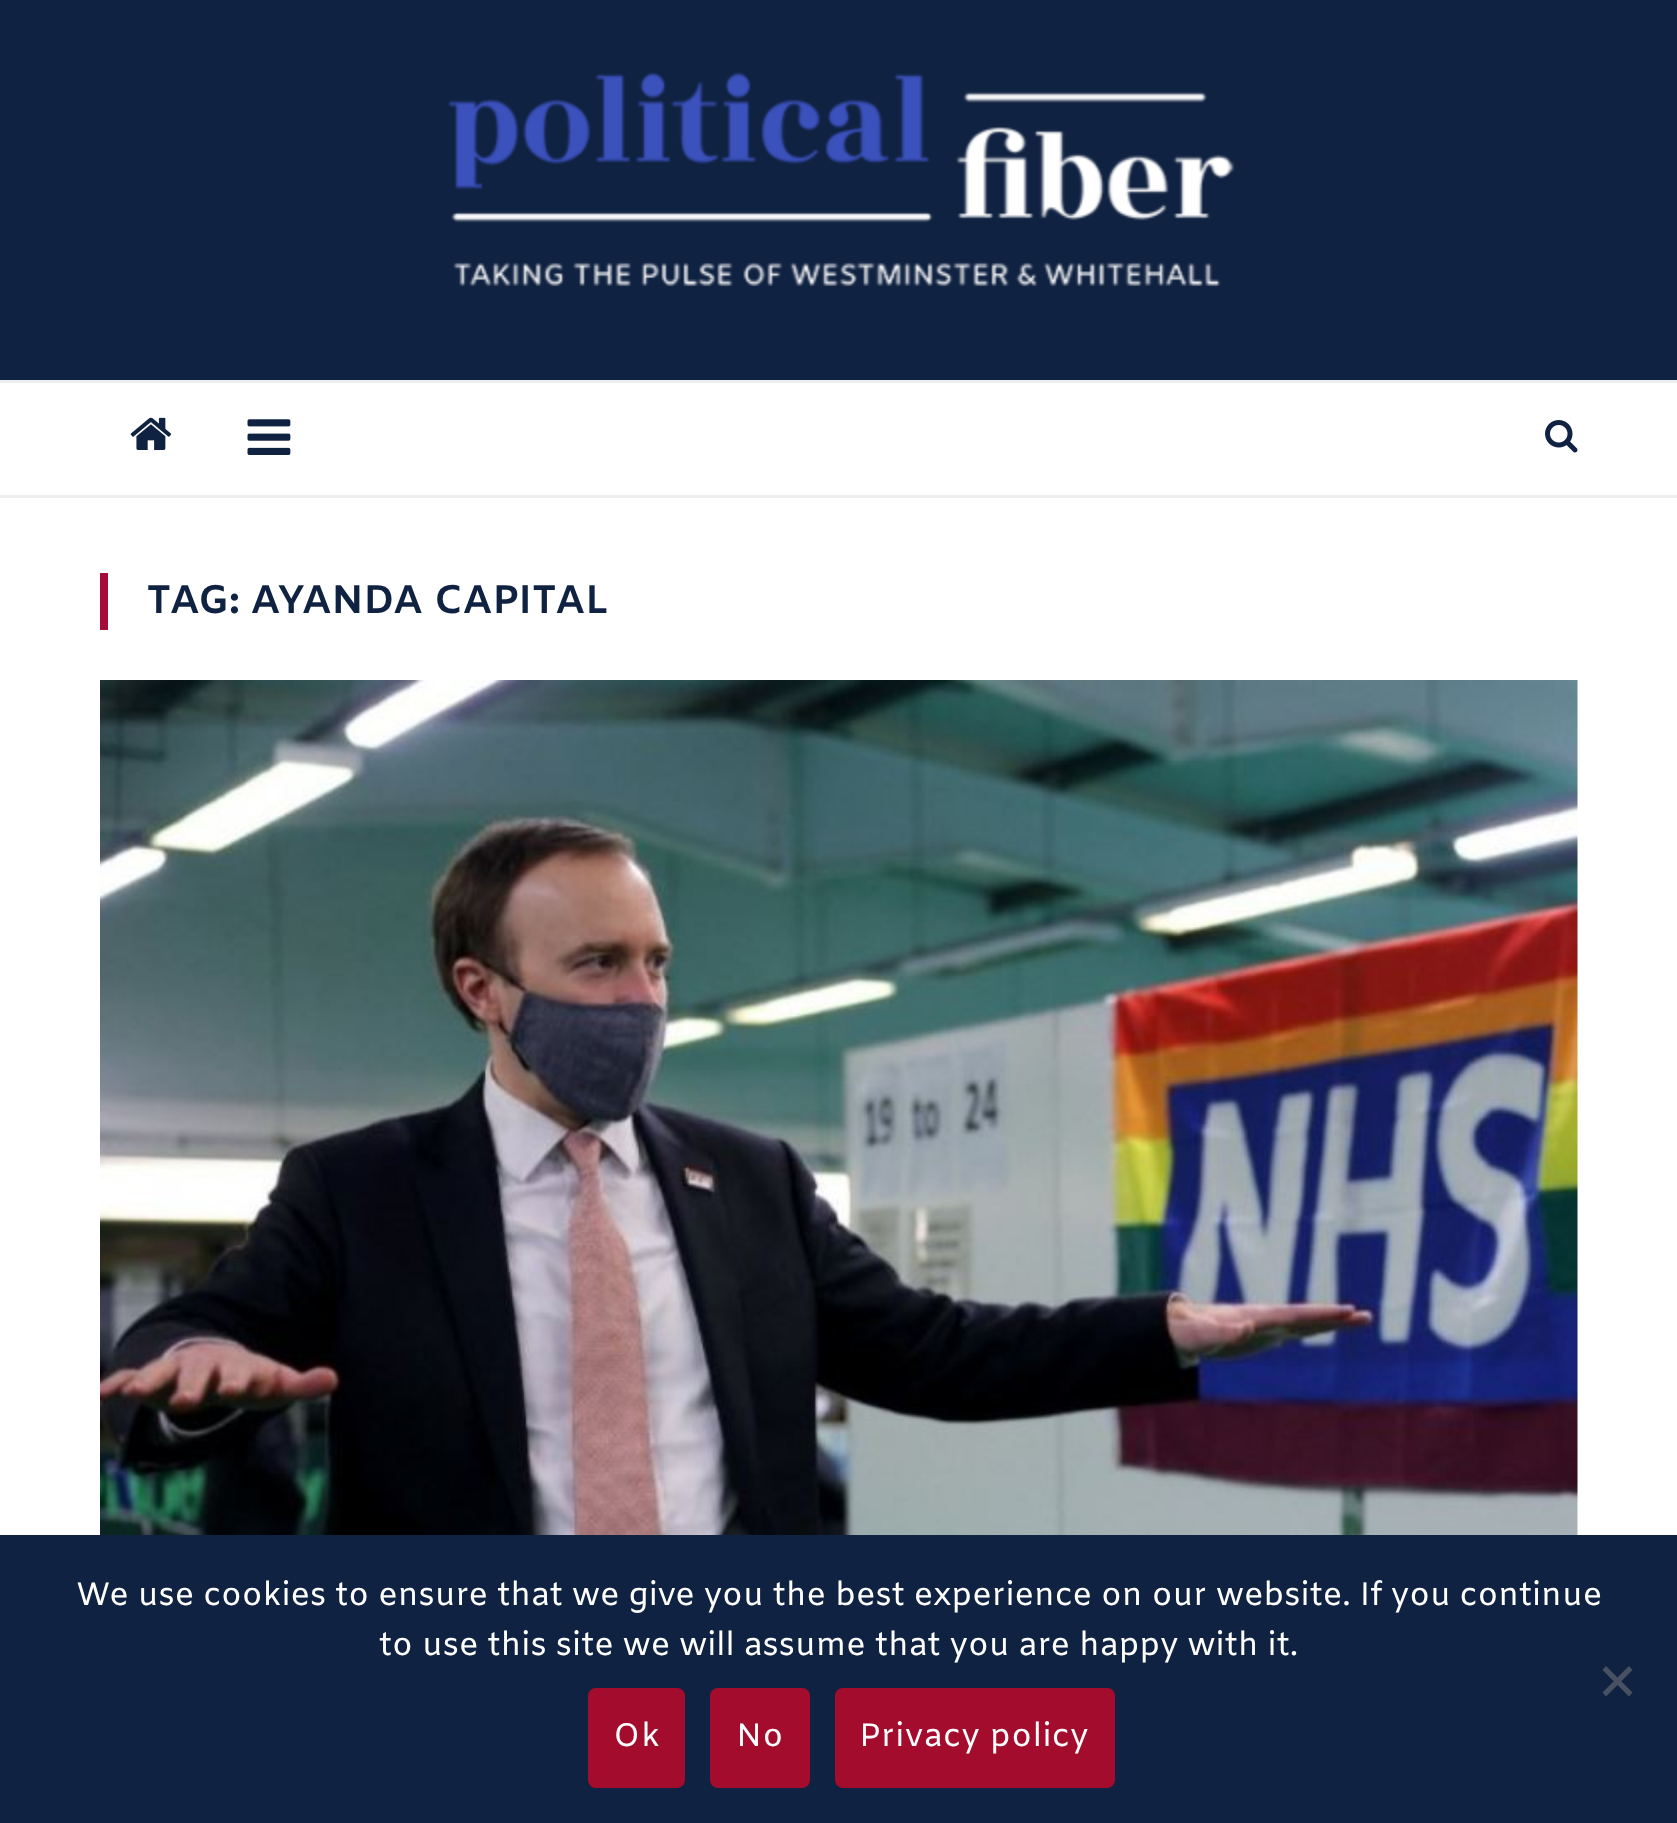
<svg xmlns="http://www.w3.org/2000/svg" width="1677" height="1823">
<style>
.a{font:bold 40px Amiko;fill:#102241}
.b{font:32.5px Amiko;fill:#fff}
.c{font:32.5px Amiko;letter-spacing:0.6px;fill:#fff}
</style>
<rect width="100%" height="100%" fill="#fff"/>
<path fill="#102241" d="M0 0h1677v380H0z"/>
<image href="1.png" x="447" y="72" width="788" height="215"/>
<path fill="#eee" d="M0 380h1677v3H0z"/>
<path fill="#eee" d="M0 495h1677v3H0z"/>
<image href="2.png" x="130" y="417" width="42" height="33"/>
<image href="3.png" x="247" y="419" width="44" height="36"/>
<image href="4.png" x="1545" y="420" width="33" height="33"/>
<path fill="#a50c39" d="M100 573h8v57H100z"/>
<image href="5.png" x="100" y="680" width="1478" height="855"/>
<path fill="#102241" d="M0 1535h1677v288H0z"/>
<path fill="#485161" d="M1629 1666l3.5 4l-26.5 26.5l-3.5-4z"/>
<path fill="#485161" d="M1602.5 1670l3.5-4l26.5 26.5l-3.5 4z"/>
<rect fill="#a40c2d" x="588" y="1688" width="97" height="100" rx="8"/>
<rect fill="#a40c2d" x="710" y="1688" width="100" height="100" rx="8"/>
<rect fill="#a40c2d" x="835" y="1688" width="280" height="100" rx="8"/>
<text class="a" x="146" y="613">TAG: AYANDA CAPITAL</text>
<text class="b" x="76" y="1605">We use cookies to ensure that we give you the best experience on our website. If you continue</text>
<text class="b" x="379" y="1655">to use this site we will assume that you are happy with it.</text>
<text class="c" x="613" y="1746">Ok</text>
<text class="c" x="736" y="1746">No</text>
<text class="c" x="859" y="1746">Privacy policy</text>
</svg>
